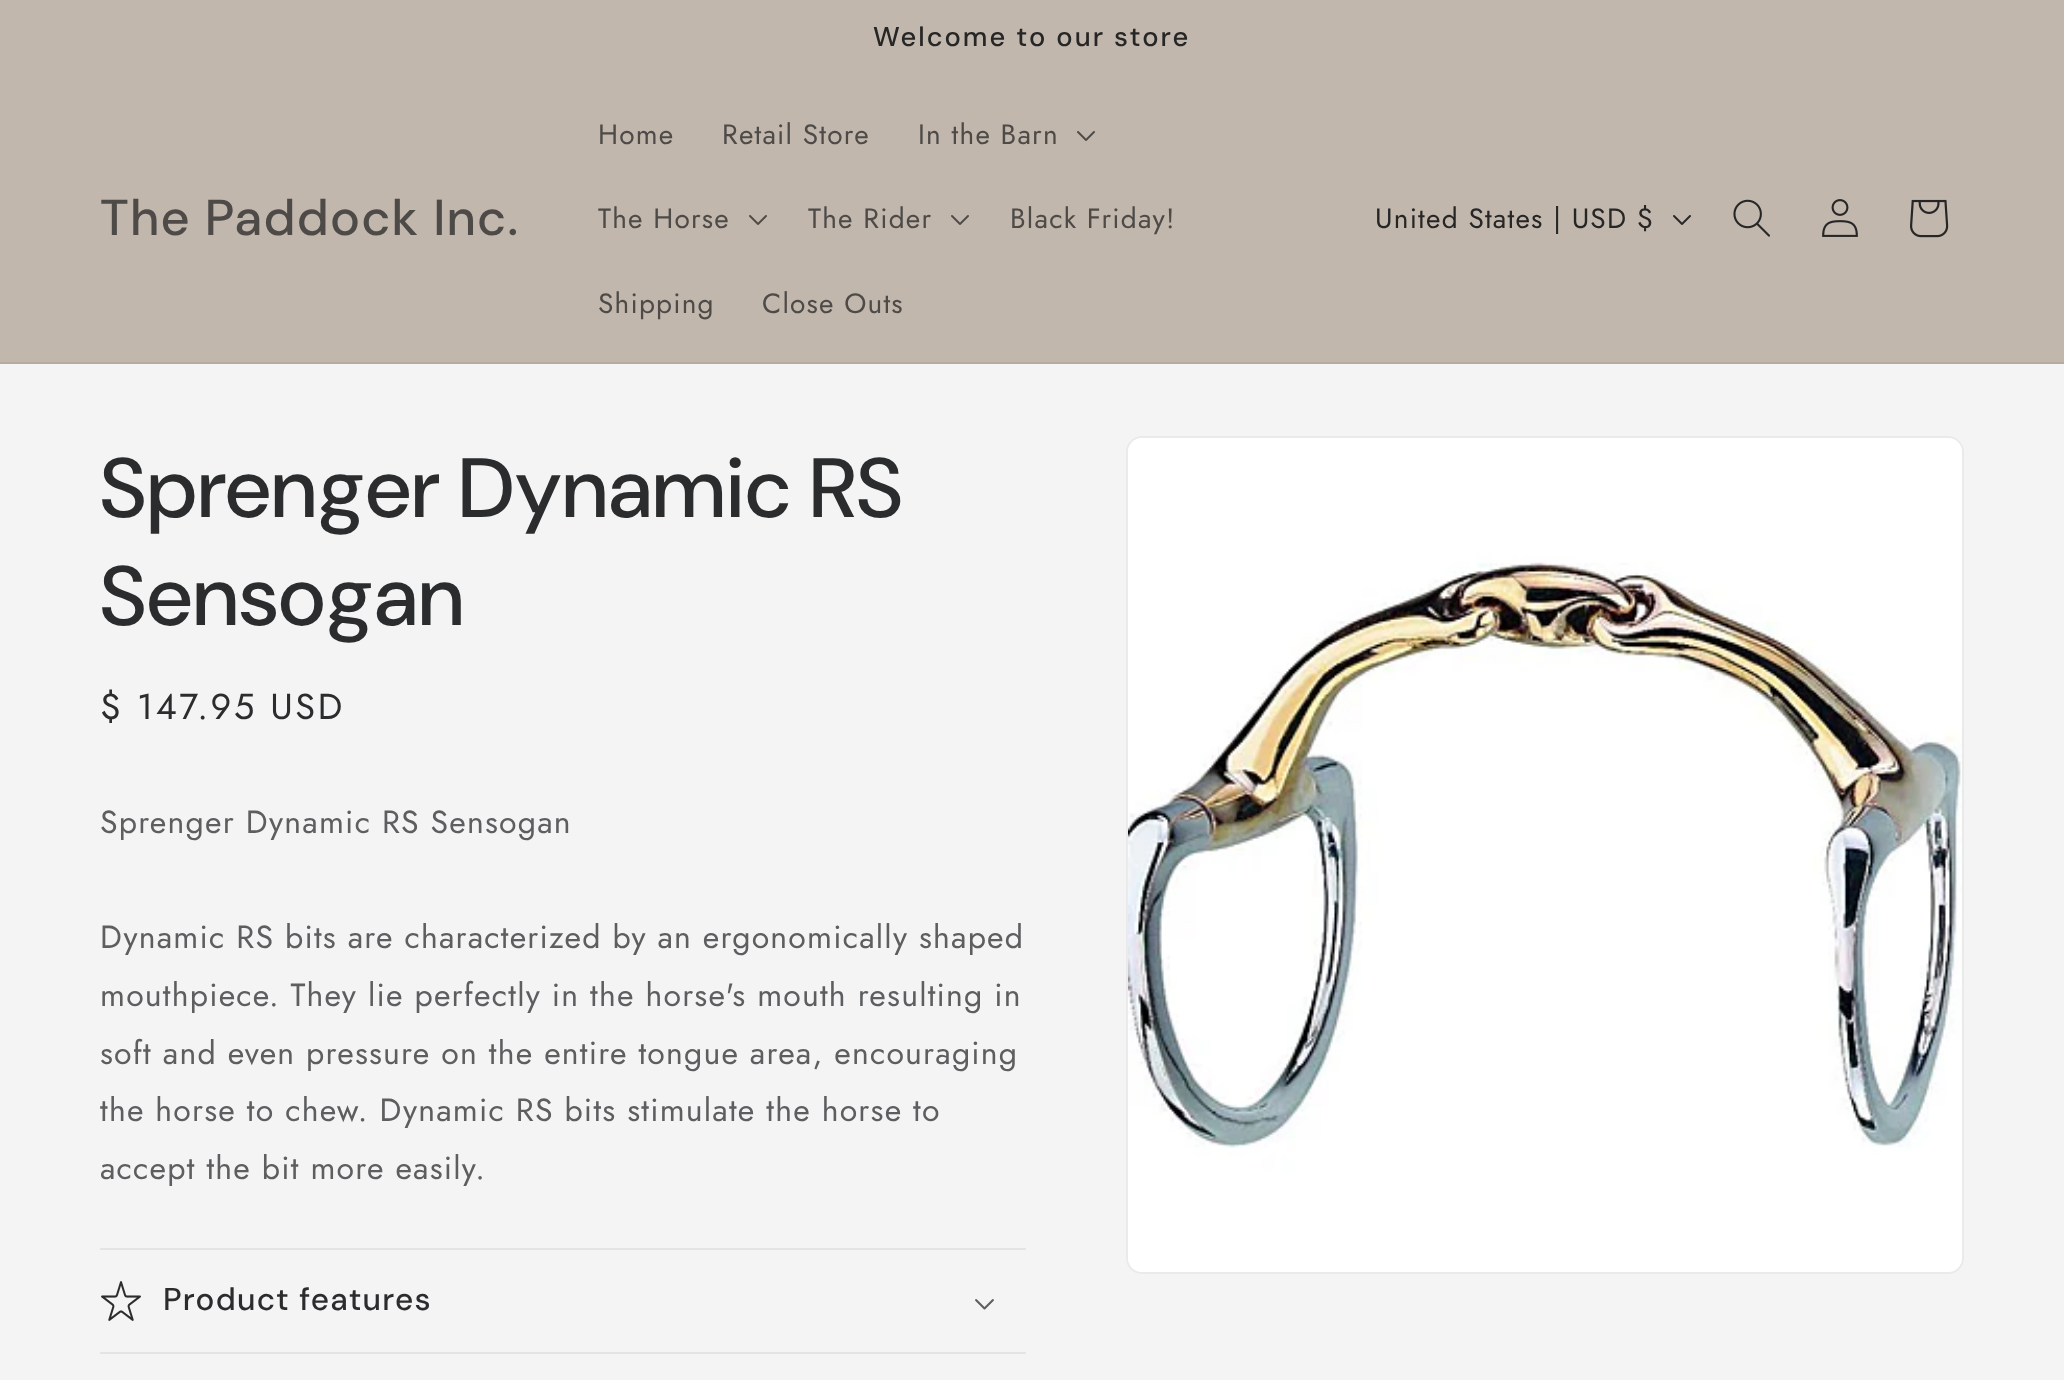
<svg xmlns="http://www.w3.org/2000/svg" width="2064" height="1380">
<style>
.a{font:500 27.25px 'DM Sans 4';letter-spacing:2px;fill:#262626}
.b{font:500 50.5px 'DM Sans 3';letter-spacing:1.25px;fill:#4d4a48}
.c{font:28px Jost;letter-spacing:1.2px;fill:#4d4a48}
.d{font:28px Jost;letter-spacing:1.2px;fill:#262626}
.e{font:500 84px DM Sans;letter-spacing:1.25px;fill:#2b2c2d}
.f{font:36px Jost;letter-spacing:2.6px;fill:#2b2c2d}
.g{font:32px Jost;letter-spacing:1.2px;fill:#5d5e5f}
.h{font:500 31.5px 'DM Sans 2';letter-spacing:1.25px;fill:#2b2c2d}
</style>
<rect width="100%" height="100%" fill="#f4f4f4"/>
<path fill="#c2b7ac" d="M0 0h2064v362H0z"/>
<path fill="#b6aba1" d="M0 362h2064v2H0z"/>
<image href="1.png" x="1077" y="131" width="18" height="10"/>
<image href="1.png" x="749" y="215" width="18" height="10"/>
<image href="1.png" x="951" y="215" width="18" height="10"/>
<image href="2.png" x="1673" y="215" width="18" height="10"/>
<image href="3.png" x="1733" y="199" width="37" height="38"/>
<image href="4.png" x="1822" y="199" width="36" height="38"/>
<image href="5.png" x="1910" y="199" width="39" height="39"/>
<path fill="#e4e4e4" d="M100 1248h926v2H100z"/>
<path fill="#e4e4e4" d="M100 1352h926v2H100z"/>
<image href="6.png" x="101" y="1281" width="40" height="40"/>
<image href="7.png" x="975" y="1299" width="19" height="11"/>
<rect fill="none" stroke="#eaeaea" stroke-width="2" x="1127" y="437" width="836" height="836" rx="15"/>
<image href="8.png" x="1128" y="438" width="834" height="834"/>
<text class="a" x="873" y="46">Welcome to our store</text>
<text class="b" x="100" y="235">The Paddock Inc.</text>
<text class="c" x="598" y="144">Home</text>
<text class="c" x="722" y="144">Retail Store</text>
<text class="c" x="918" y="144">In the Barn</text>
<text class="c" x="598" y="228">The Horse</text>
<text class="c" x="808" y="228">The Rider</text>
<text class="c" x="1010" y="228">Black Friday!</text>
<text class="c" x="598" y="313">Shipping</text>
<text class="c" x="762" y="313">Close Outs</text>
<text class="d" x="1375" y="228">United States | USD $</text>
<text class="e" x="100" y="517">Sprenger Dynamic RS</text>
<text class="e" x="100" y="625">Sensogan</text>
<text class="f" x="100" y="719">$ 147.95 USD</text>
<text class="g" x="100" y="833">Sprenger Dynamic RS Sensogan</text>
<text class="g" x="100" y="948">Dynamic RS bits are characterized by an ergonomically shaped</text>
<text class="g" x="100" y="1006">mouthpiece. They lie perfectly in the horse's mouth resulting in</text>
<text class="g" x="100" y="1064">soft and even pressure on the entire tongue area, encouraging</text>
<text class="g" x="100" y="1121">the horse to chew. Dynamic RS bits stimulate the horse to</text>
<text class="g" x="100" y="1179">accept the bit more easily.</text>
<text class="h" x="163" y="1310">Product features</text>
</svg>
